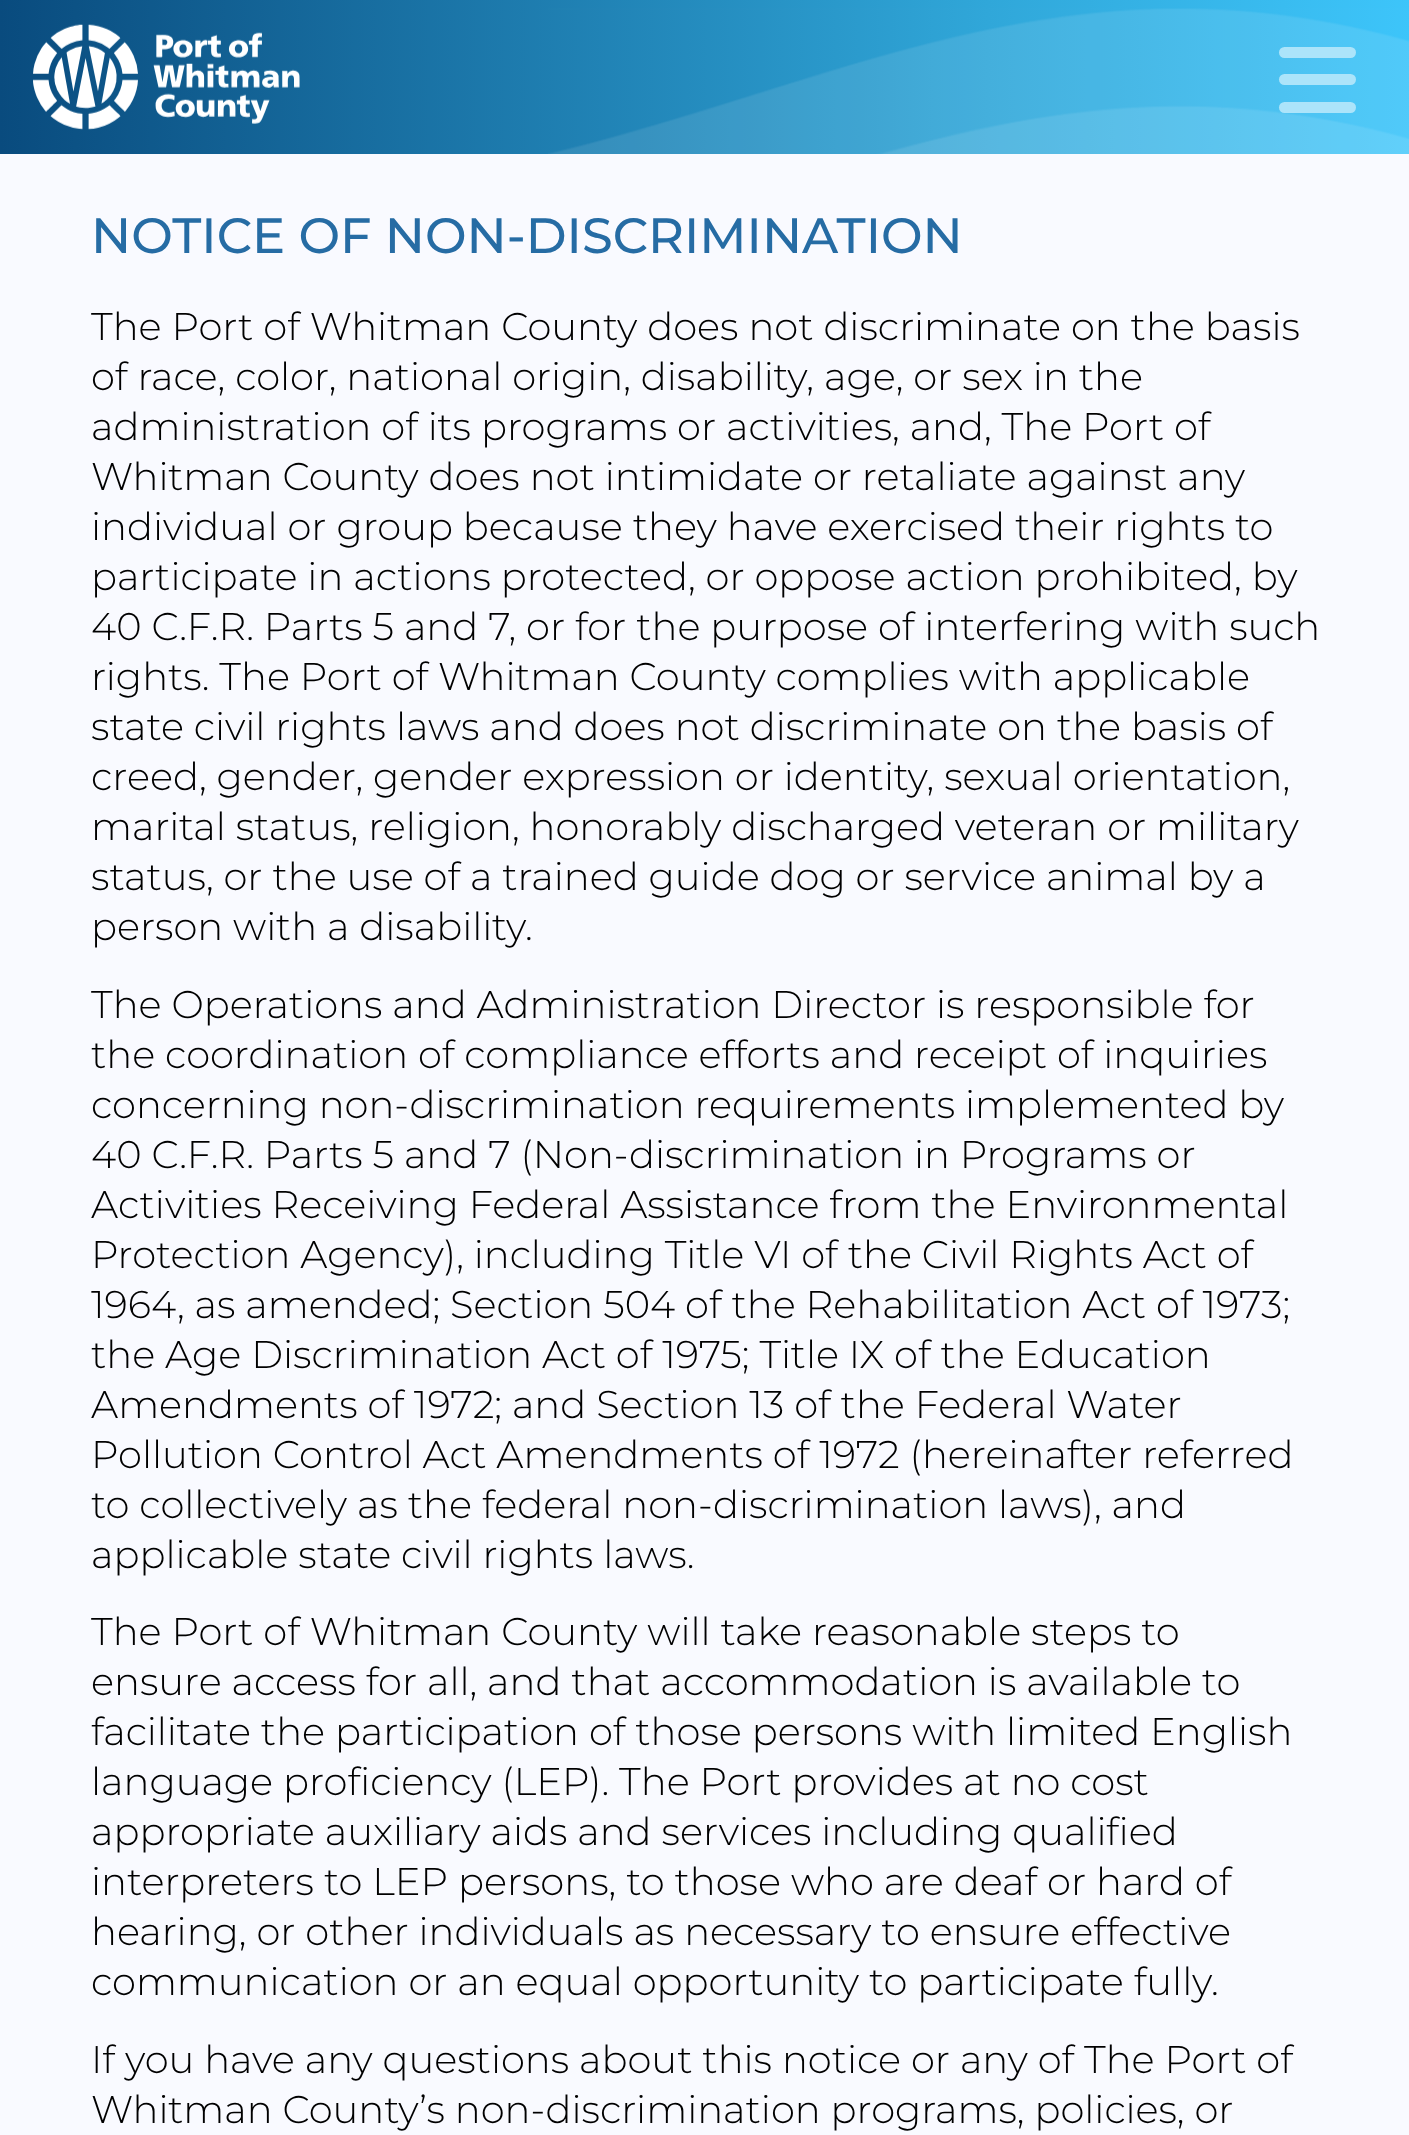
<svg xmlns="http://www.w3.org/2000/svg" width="1409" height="2135">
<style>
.a{font:500 49.5px Montserrat;fill:#266ca4}
.b{font:300 38.5px Montserrat;fill:#000}
</style>
<defs>
<linearGradient id="g1" gradientUnits="userSpaceOnUse" x1="0" y1="77" x2="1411" y2="77"><stop offset="0" stop-color="#094b7e"/><stop offset="0.7" stop-color="#30a7d9"/><stop offset="1" stop-color="#3dc5fa"/></linearGradient>
</defs>
<rect width="100%" height="100%" fill="#f9faff"/>
<path fill="url(#g1)" d="M0 0h1409v154H0z"/>
<image href="1.png" x="548" y="8" width="861" height="146"/>
<image href="2.png" x="33" y="24" width="267" height="106"/>
<rect fill="#ace4fa" x="1279" y="47" width="77" height="11" rx="5.5"/>
<rect fill="#ace4fa" x="1279" y="74" width="77" height="11" rx="5.5"/>
<rect fill="#ace4fa" x="1279" y="102" width="77" height="11" rx="5.5"/>
<text class="a" x="91" y="253">NOTICE OF NON-DISCRIMINATION</text>
<text class="b" x="91" y="340">The Port of Whitman County does not discriminate on the basis</text>
<text class="b" x="91" y="390">of race, color, national origin, disability, age, or sex in the</text>
<text class="b" x="91" y="440">administration of its programs or activities, and, The Port of</text>
<text class="b" x="91" y="490">Whitman County does not intimidate or retaliate against any</text>
<text class="b" x="91" y="540">individual or group because they have exercised their rights to</text>
<text class="b" x="91" y="590">participate in actions protected, or oppose action prohibited, by</text>
<text class="b" x="91" y="640">40 C.F.R. Parts 5 and 7, or for the purpose of interfering with such</text>
<text class="b" x="91" y="690">rights. The Port of Whitman County complies with applicable</text>
<text class="b" x="91" y="740">state civil rights laws and does not discriminate on the basis of</text>
<text class="b" x="91" y="790">creed, gender, gender expression or identity, sexual orientation,</text>
<text class="b" x="91" y="840">marital status, religion, honorably discharged veteran or military</text>
<text class="b" x="91" y="890">status, or the use of a trained guide dog or service animal by a</text>
<text class="b" x="91" y="940">person with a disability.</text>
<text class="b" x="91" y="1018">The Operations and Administration Director is responsible for</text>
<text class="b" x="91" y="1068">the coordination of compliance efforts and receipt of inquiries</text>
<text class="b" x="91" y="1118">concerning non-discrimination requirements implemented by</text>
<text class="b" x="91" y="1168">40 C.F.R. Parts 5 and 7 (Non-discrimination in Programs or</text>
<text class="b" x="91" y="1218">Activities Receiving Federal Assistance from the Environmental</text>
<text class="b" x="91" y="1268">Protection Agency), including Title VI of the Civil Rights Act of</text>
<text class="b" x="91" y="1318">1964, as amended; Section 504 of the Rehabilitation Act of 1973;</text>
<text class="b" x="91" y="1368">the Age Discrimination Act of 1975; Title IX of the Education</text>
<text class="b" x="91" y="1418">Amendments of 1972; and Section 13 of the Federal Water</text>
<text class="b" x="91" y="1468">Pollution Control Act Amendments of 1972 (hereinafter referred</text>
<text class="b" x="91" y="1518">to collectively as the federal non-discrimination laws), and</text>
<text class="b" x="91" y="1568">applicable state civil rights laws.</text>
<text class="b" x="91" y="1645">The Port of Whitman County will take reasonable steps to</text>
<text class="b" x="91" y="1695">ensure access for all, and that accommodation is available to</text>
<text class="b" x="91" y="1745">facilitate the participation of those persons with limited English</text>
<text class="b" x="91" y="1795">language proficiency (LEP). The Port provides at no cost</text>
<text class="b" x="91" y="1845">appropriate auxiliary aids and services including qualified</text>
<text class="b" x="91" y="1895">interpreters to LEP persons, to those who are deaf or hard of</text>
<text class="b" x="91" y="1945">hearing, or other individuals as necessary to ensure effective</text>
<text class="b" x="91" y="1995">communication or an equal opportunity to participate fully.</text>
<text class="b" x="91" y="2073">If you have any questions about this notice or any of The Port of</text>
<text class="b" x="91" y="2123">Whitman County’s non-discrimination programs, policies, or</text>
</svg>
